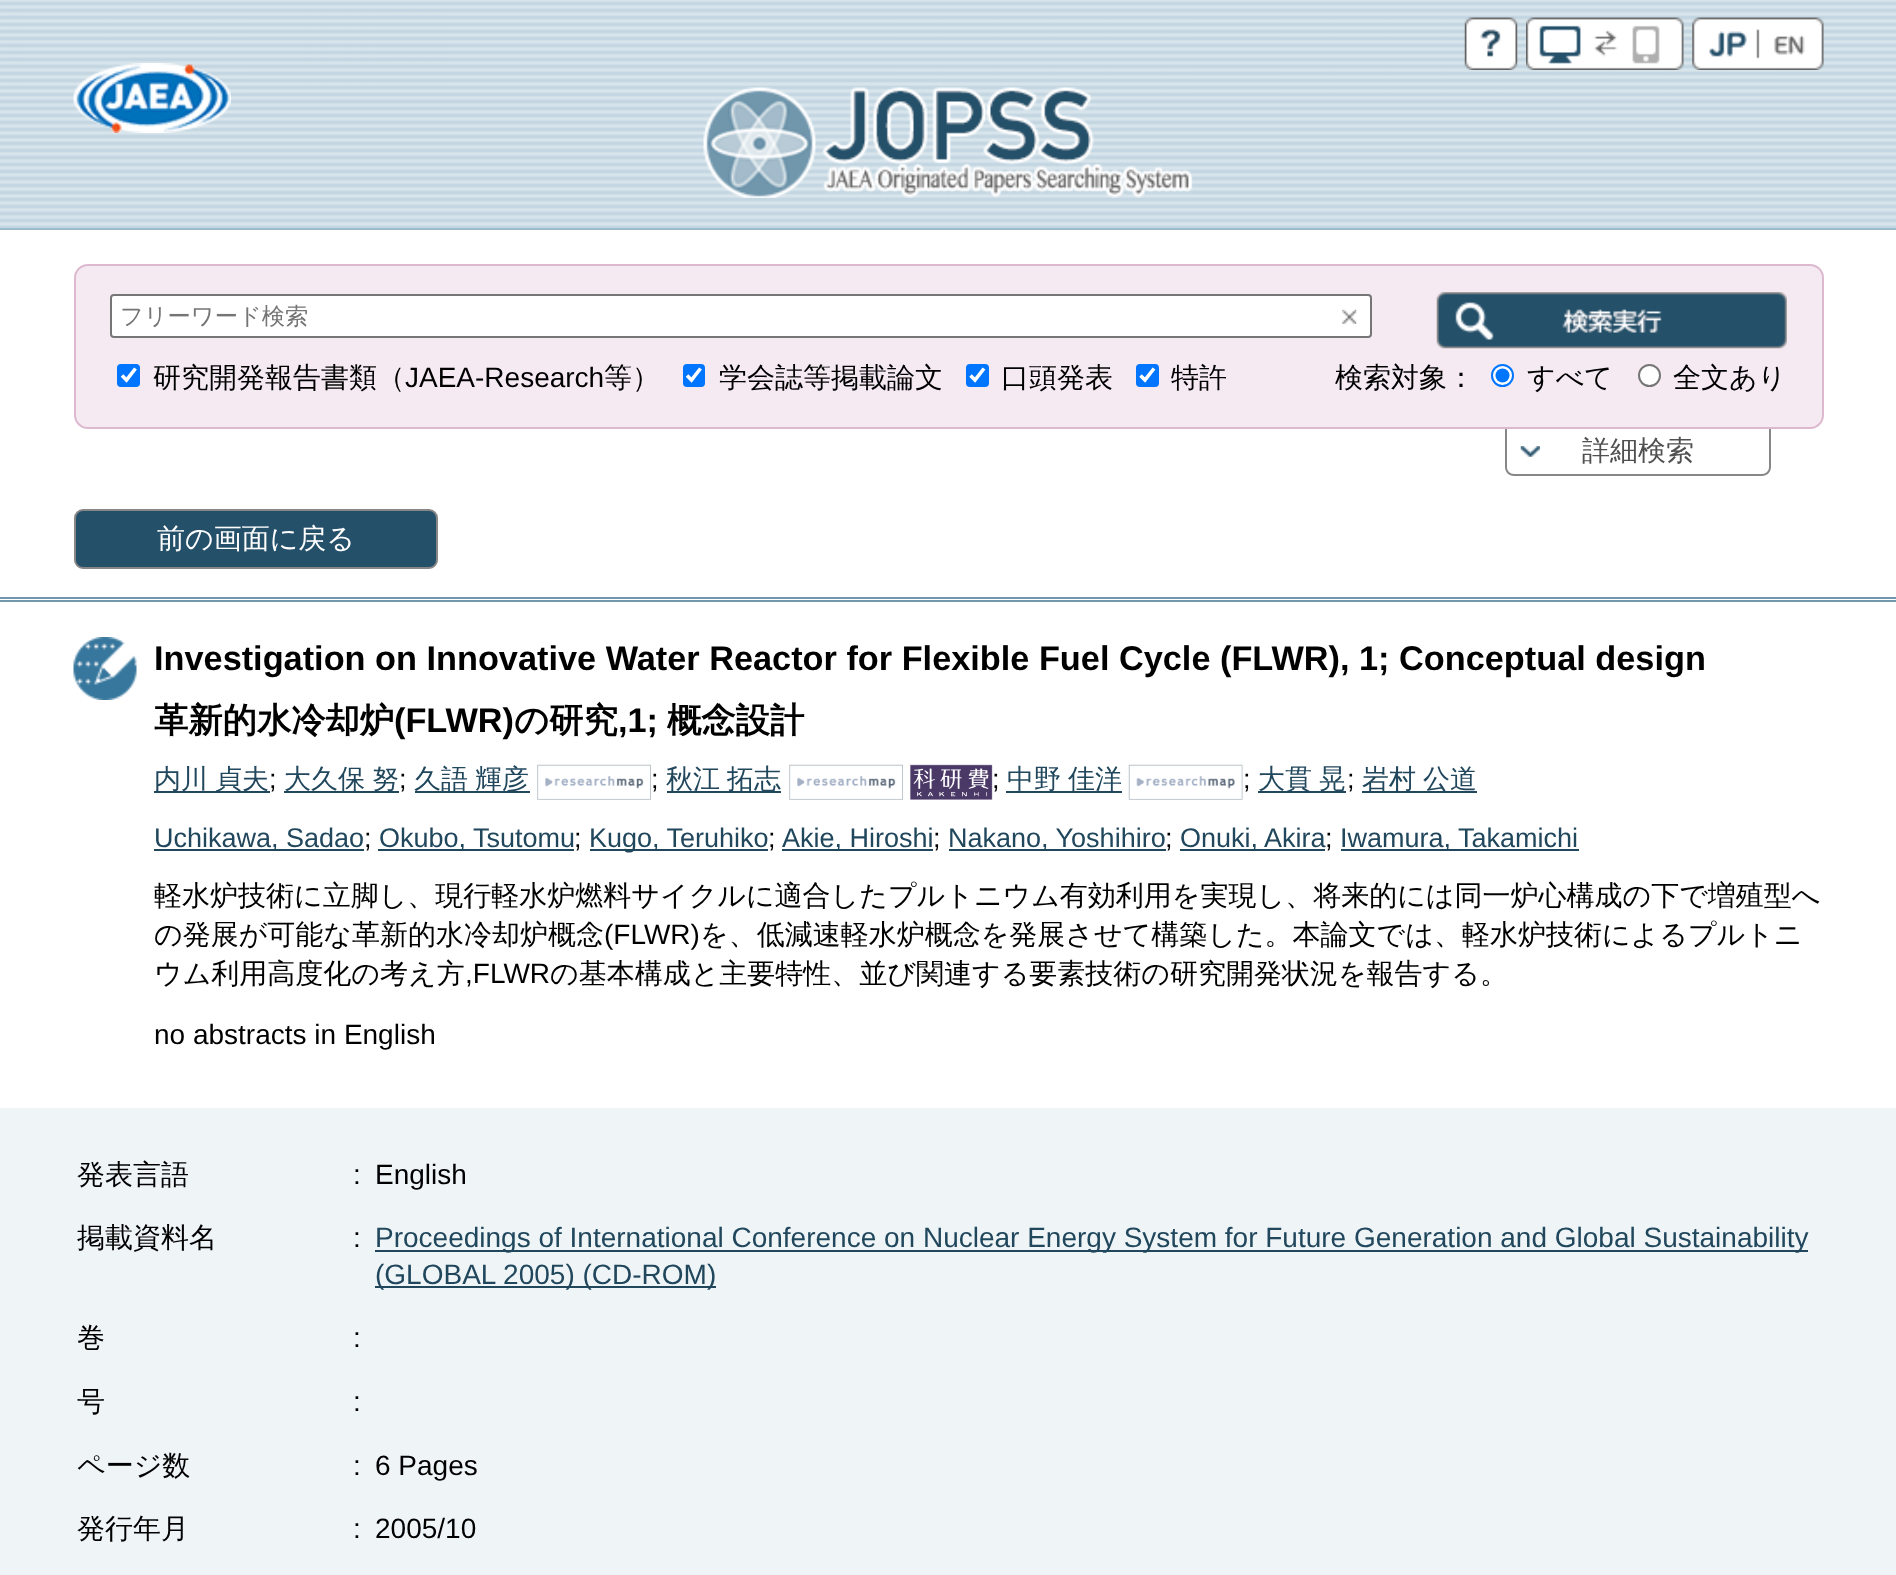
<svg xmlns="http://www.w3.org/2000/svg" width="1896" height="1575">
<style>
.a{font:500 23.25px WenQuanYi Zen Hei;fill:#757575}
.b{font:500 28px WenQuanYi Zen Hei;fill:#000}
.c{font:28px Liberation Sans;fill:#000}
.d{font:500 28px WenQuanYi Zen Hei;fill:#505050}
.e{font:500 28px WenQuanYi Zen Hei;fill:#fff}
.f{font:bold 34.3px Liberation Sans;fill:#000}
.g{font:bold 34.3px WenQuanYi Zen Hei;fill:#000}
.h{font:500 27px WenQuanYi Zen Hei;fill:#21475d}
.i{font:27px Liberation Sans;fill:#000}
.j{font:27px Liberation Sans;fill:#21475d}
.k{font:28px Liberation Sans;fill:#21475d}
</style>
<rect width="100%" height="100%" fill="#fff"/>
<image href="1.png" x="0" y="0" width="1896" height="228"/>
<path fill="#9bbbce" d="M0 228h1896v2H0z"/>
<image href="2.png" x="1464" y="17" width="54" height="53"/>
<image href="3.png" x="1526" y="17" width="158" height="53"/>
<image href="4.png" x="1692" y="17" width="132" height="53"/>
<image href="5.png" x="73" y="63" width="158" height="70"/>
<image href="6.png" x="703" y="87" width="490" height="111"/>
<rect fill="#f5eaf2" stroke="#ddb9d0" stroke-width="2" x="75" y="265" width="1748" height="163" rx="13"/>
<rect fill="#fff" stroke="#767676" stroke-width="2" x="111" y="295" width="1260" height="42" rx="3"/>
<image href="7.png" x="1342" y="309" width="15" height="15"/>
<image href="8.png" x="1436" y="292" width="351" height="57"/>
<rect fill="#0075ff" x="117" y="364" width="23" height="23" rx="4"/>
<path fill="none" stroke="#fff" stroke-width="3.6" d="M122 375.5l4.5 4.5l9-11.5"/>
<rect fill="#0075ff" x="683" y="364" width="22" height="23" rx="4"/>
<path fill="none" stroke="#fff" stroke-width="3.6" d="M687 375.5l4.5 4.5l9-11.5"/>
<rect fill="#0075ff" x="966" y="364" width="23" height="23" rx="4"/>
<path fill="none" stroke="#fff" stroke-width="3.6" d="M970.5 375.5l4.5 4.5l9-11.5"/>
<rect fill="#0075ff" x="1136" y="364" width="23" height="23" rx="4"/>
<path fill="none" stroke="#fff" stroke-width="3.6" d="M1140.5 375.5l4.5 4.5l9-11.5"/>
<circle fill="#fff" stroke="#0075ff" stroke-width="2" cx="1502.5" cy="375.5" r="10.5"/>
<circle fill="#0075ff" cx="1502.5" cy="375.5" r="7"/>
<circle fill="#fff" stroke="#767676" stroke-width="2" cx="1649.5" cy="375.5" r="10.5"/>
<path fill="#878787" fill-rule="evenodd" d="M1505 429h266v38c0 5-4 9-9 9h-248c-5 0-9-4-9-9zm2 0h262v38c0 4-3 7-7 7h-248c-4 0-7-3-7-7z"/>
<image href="9.png" x="1520" y="446" width="20" height="11"/>
<rect fill="#25506a" stroke="#878787" stroke-width="2" x="75" y="510" width="362" height="58" rx="8"/>
<path fill="#7197ad" d="M0 597h1896v2H0z"/>
<path fill="#7197ad" d="M0 600h1896v2H0z"/>
<image href="10.png" x="73" y="637" width="64" height="63"/>
<path fill="#21475d" d="M154 791h116v2H154z"/>
<path fill="#21475d" d="M284 791h115v2H284z"/>
<path fill="#21475d" d="M415 791h115v2H415z"/>
<image href="11.png" x="537" y="764" width="114" height="36"/>
<path fill="#21475d" d="M667 791h114v2H667z"/>
<image href="12.png" x="789" y="764" width="114" height="36"/>
<image href="13.png" x="910" y="764" width="83" height="36"/>
<path fill="#21475d" d="M1006 791h116v2H1006z"/>
<image href="14.png" x="1128" y="764" width="115" height="36"/>
<path fill="#21475d" d="M1258 791h88v2H1258z"/>
<path fill="#21475d" d="M1362 791h115v2H1362z"/>
<path fill="#21475d" d="M154 849h210v2H154z"/>
<path fill="#21475d" d="M378 849h196v2H378z"/>
<path fill="#21475d" d="M590 849h178v2H590z"/>
<path fill="#21475d" d="M782 849h151v2H782z"/>
<path fill="#21475d" d="M949 849h217v2H949z"/>
<path fill="#21475d" d="M1180 849h145v2H1180z"/>
<path fill="#21475d" d="M1341 849h238v2H1341z"/>
<path fill="#eff4f7" d="M0 1108h1896v467H0z"/>
<path fill="#21475d" d="M375 1250h1433v2H375z"/>
<path fill="#21475d" d="M375 1286h341v2H375z"/>
<text class="a" x="120" y="324">フリーワード検索</text>
<text class="b" x="153" y="387">研究開発報告書類（</text>
<text class="c" x="405" y="387">JAEA-Research</text>
<text class="b" x="604" y="387">等）</text>
<text class="b" x="719" y="387">学会誌等掲載論文</text>
<text class="b" x="1001" y="387">口頭発表</text>
<text class="b" x="1171" y="387">特許</text>
<text class="b" x="1335" y="387">検索対象：</text>
<text class="b" x="1527" y="387">すべて</text>
<text class="b" x="1673" y="387">全文あり</text>
<text class="d" x="1582" y="460">詳細検索</text>
<text class="e" x="157" y="548">前の画面に戻る</text>
<text class="f" x="154" y="670">Investigation on Innovative Water Reactor for Flexible Fuel Cycle (FLWR), 1; Conceptual design</text>
<text class="g" x="154" y="732">革新的水冷却炉</text>
<text class="f" x="394" y="732">(FLWR)</text>
<text class="g" x="514" y="732">の研究</text>
<text class="f" x="618" y="732">,1;</text>
<text class="g" x="667" y="732">概念設計</text>
<text class="h" x="154" y="788" word-spacing="-1">内川 貞夫</text>
<text class="i" x="269" y="788">;</text>
<text class="h" x="284" y="788" word-spacing="-1">大久保 努</text>
<text class="i" x="399" y="788">;</text>
<text class="h" x="414" y="788" word-spacing="-1">久語 輝彦</text>
<text class="i" x="651" y="788">;</text>
<text class="h" x="666" y="788" word-spacing="-1">秋江 拓志</text>
<text class="i" x="992" y="788">;</text>
<text class="h" x="1007" y="788" word-spacing="-1">中野 佳洋</text>
<text class="i" x="1243" y="788">;</text>
<text class="h" x="1258" y="788" word-spacing="-1">大貫 晃</text>
<text class="i" x="1347" y="788">;</text>
<text class="h" x="1362" y="788" word-spacing="-1">岩村 公道</text>
<text class="j" x="154" y="847">Uchikawa, Sadao</text>
<text class="i" x="364" y="847">;</text>
<text class="j" x="379" y="847">Okubo, Tsutomu</text>
<text class="i" x="574" y="847">;</text>
<text class="j" x="589" y="847">Kugo, Teruhiko</text>
<text class="i" x="768" y="847">;</text>
<text class="j" x="782" y="847">Akie, Hiroshi</text>
<text class="i" x="933" y="847">;</text>
<text class="j" x="948" y="847">Nakano, Yoshihiro</text>
<text class="i" x="1165" y="847">;</text>
<text class="j" x="1180" y="847">Onuki, Akira</text>
<text class="i" x="1325" y="847">;</text>
<text class="j" x="1340" y="847">Iwamura, Takamichi</text>
<text class="b" x="154" y="905">軽水炉技術に立脚し、現行軽水炉燃料サイクルに適合したプルトニウム有効利用を実現し、将来的には同一炉心構成の下で増殖型へ</text>
<text class="b" x="154" y="944">の発展が可能な革新的水冷却炉概念</text>
<text class="c" x="604" y="944">(FLWR)</text>
<text class="b" x="700" y="944">を、低減速軽水炉概念を発展させて構築した。本論文では、軽水炉技術によるプルトニ</text>
<text class="b" x="154" y="983">ウム利用高度化の考え方</text>
<text class="c" x="465" y="983">,FLWR</text>
<text class="b" x="550" y="983">の基本構成と主要特性、並び関連する要素技術の研究開発状況を報告する。</text>
<text class="c" x="154" y="1044">no abstracts in English</text>
<text class="b" x="77" y="1184">発表言語</text>
<text class="c" x="353" y="1184">:</text>
<text class="c" x="375" y="1184">English</text>
<text class="b" x="77" y="1247">掲載資料名</text>
<text class="c" x="353" y="1247">:</text>
<text class="k" x="375" y="1247">Proceedings of International Conference on Nuclear Energy System for Future Generation and Global Sustainability</text>
<text class="k" x="375" y="1284">(GLOBAL 2005) (CD-ROM)</text>
<text class="b" x="77" y="1347">巻</text>
<text class="c" x="353" y="1347">:</text>
<text class="b" x="77" y="1411">号</text>
<text class="c" x="353" y="1411">:</text>
<text class="b" x="77" y="1475">ページ数</text>
<text class="c" x="353" y="1475">:</text>
<text class="c" x="375" y="1475">6 Pages</text>
<text class="b" x="77" y="1538">発行年月</text>
<text class="c" x="353" y="1538">:</text>
<text class="c" x="375" y="1538">2005/10</text>
</svg>
